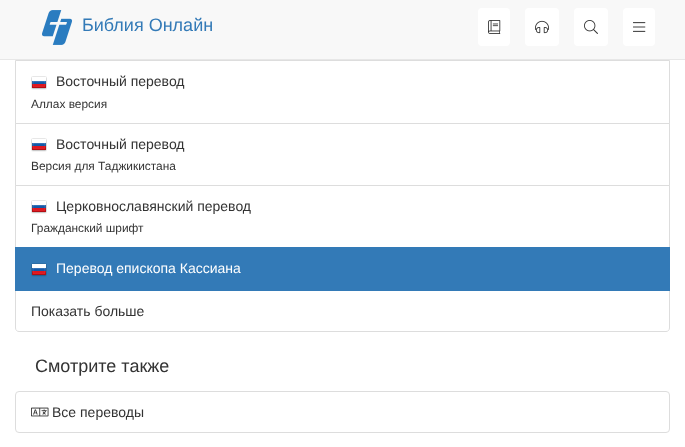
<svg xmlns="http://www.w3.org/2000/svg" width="685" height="447">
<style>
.a{font:18px Liberation Sans;fill:#337ab7}
.b{font:14px Liberation Sans;fill:#333}
.c{font:11.9px Liberation Sans;fill:#333}
.d{font:14px Liberation Sans;fill:#fff}
.e{font:18px Liberation Sans;fill:#333}
</style>
<rect width="100%" height="100%" fill="#fff"/>
<path fill="#f8f8f8" d="M0 0h685v59H0z"/>
<path fill="#e7e7e7" d="M0 59h685v1H0z"/>
<image href="1.png" x="42" y="10" width="31" height="35"/>
<rect fill="#fff" x="478" y="8" width="32" height="38" rx="4"/>
<image href="2.png" x="488" y="20" width="13" height="14"/>
<rect fill="#fff" x="525" y="8" width="34" height="38" rx="4"/>
<image href="3.png" x="535" y="20" width="14" height="14"/>
<rect fill="#fff" x="574" y="8" width="34" height="38" rx="4"/>
<image href="4.png" x="584" y="20" width="14" height="14"/>
<rect fill="#fff" x="623" y="8" width="32" height="38" rx="4"/>
<image href="5.png" x="633" y="22" width="13" height="10"/>
<path fill="none" stroke="#ddd" d="M15.5 60.5h654v63H15.5z"/>
<image href="6.png" x="31" y="76" width="16" height="14"/>
<path fill="none" stroke="#ddd" d="M15.5 123.5h654v62H15.5z"/>
<image href="6.png" x="31" y="138" width="16" height="14"/>
<path fill="none" stroke="#ddd" d="M15.5 185.5h654v62H15.5z"/>
<image href="6.png" x="31" y="200" width="16" height="14"/>
<path fill="none" stroke="#ddd" d="M15.5 290.5h654v37.5c0 2-1.5 3.5-3.5 3.5h-647c-2 0-3.5-1.5-3.5-3.5z"/>
<path fill="#337ab7" d="M15 247h655v44H15z"/>
<image href="7.png" x="31" y="263" width="16" height="14"/>
<rect fill="none" stroke="#ddd" x="15.5" y="391.5" width="654" height="41" rx="3.5"/>
<image href="8.png" x="31" y="407" width="18" height="10"/>
<text class="a" x="82" y="31">Библия Онлайн</text>
<text class="b" x="56" y="86">Восточный перевод</text>
<text class="c" x="31" y="108">Аллах версия</text>
<text class="b" x="56" y="149">Восточный перевод</text>
<text class="c" x="31" y="170">Версия для Таджикистана</text>
<text class="b" x="56" y="211">Церковнославянский перевод</text>
<text class="c" x="31" y="232">Гражданский шрифт</text>
<text class="d" x="56" y="273">Перевод епископа Кассиана</text>
<text class="b" x="31" y="316">Показать больше</text>
<text class="e" x="35" y="372">Смотрите также</text>
<text class="b" x="52" y="417">Все переводы</text>
</svg>
